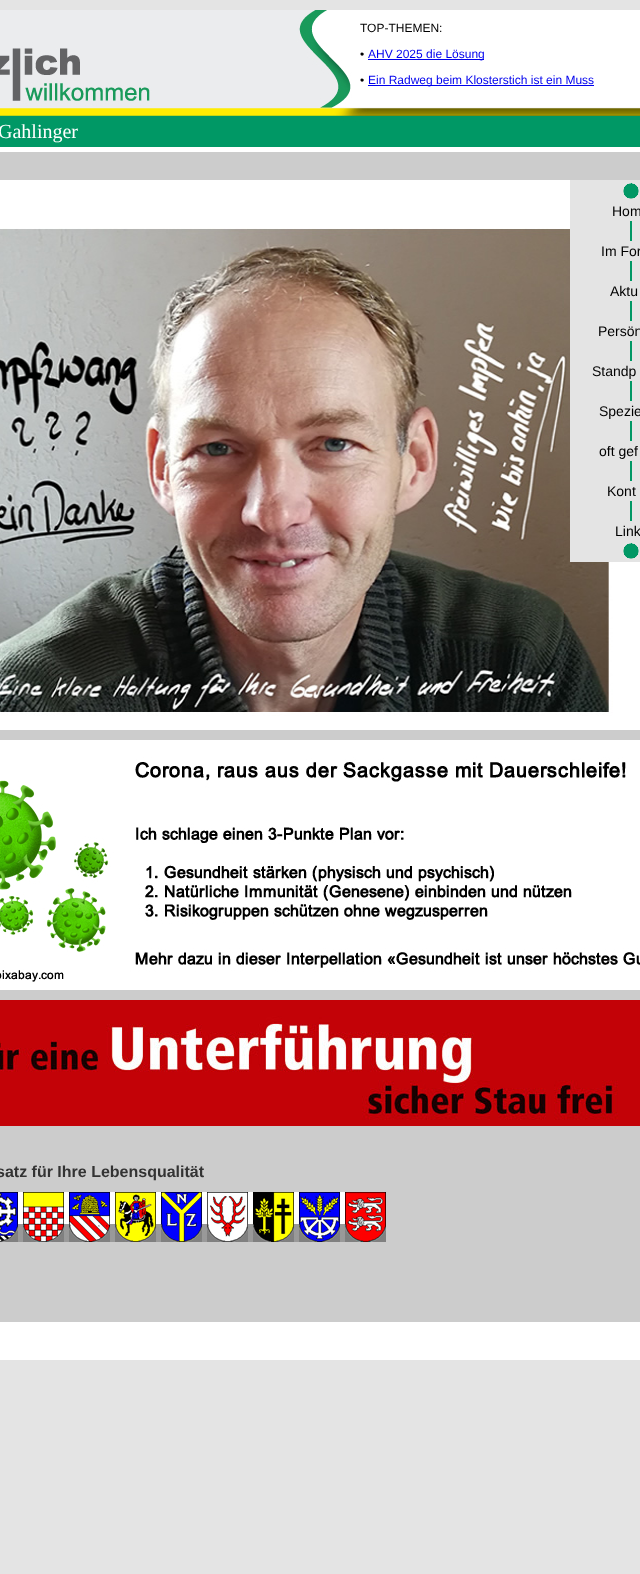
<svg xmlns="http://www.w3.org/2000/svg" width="640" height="1574">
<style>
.a{font:12px Liberation Sans;fill:#000}
.b{font:12px Liberation Sans;fill:#00e}
.c{font:20px Liberation Serif;fill:#fff}
.d{font:14px Liberation Sans;fill:#000}
.e{font:bold 16px Liberation Sans;fill:#333}
</style>
<rect width="100%" height="100%" fill="#e4e4e4"/>
<image href="1.png" x="0" y="10" width="640" height="137"/>
<path fill="#00e" d="M368 59h116v1H368z"/>
<path fill="#00e" d="M368 85h226v1H368z"/>
<path fill="#fff" d="M0 147h640v1213H0z"/>
<path fill="#ccc" d="M0 152h640v1170H0z"/>
<image href="2.png" x="0" y="180" width="640" height="550"/>
<image href="3.png" x="0" y="740" width="640" height="250"/>
<image href="4.png" x="0" y="1000" width="640" height="126"/>
<path fill="#e4e4e4" d="M570 180h70v382H570z"/>
<image href="5.png" x="623" y="183" width="16" height="16"/>
<path fill="#009865" d="M630 221h2v20H630z"/>
<path fill="#009865" d="M630 261h2v20H630z"/>
<path fill="#009865" d="M630 301h2v20H630z"/>
<path fill="#009865" d="M630 341h2v20H630z"/>
<path fill="#009865" d="M630 381h2v20H630z"/>
<path fill="#009865" d="M630 421h2v20H630z"/>
<path fill="#009865" d="M630 461h2v20H630z"/>
<path fill="#009865" d="M630 501h2v20H630z"/>
<image href="5.png" x="623" y="543" width="16" height="16"/>
<image href="6.png" x="0" y="1192" width="386" height="50"/>
<text class="a" x="360" y="32">TOP-THEMEN:</text>
<text class="a" x="360" y="58">•</text>
<text class="b" x="368" y="58">AHV 2025 die Lösung</text>
<text class="a" x="360" y="84">•</text>
<text class="b" x="368" y="84">Ein Radweg beim Klosterstich ist ein Muss</text>
<text class="c" x="-2" y="138">Gahlinger</text>
<text class="d" x="612" y="216">Hom</text>
<text class="d" x="601" y="256">Im For</text>
<text class="d" x="610" y="296">Aktu</text>
<text class="d" x="598" y="336">Persön</text>
<text class="d" x="592" y="376">Standp</text>
<text class="d" x="599" y="416">Spezie</text>
<text class="d" x="599" y="456">oft gef</text>
<text class="d" x="607" y="496">Kont</text>
<text class="d" x="615" y="536">Link</text>
<text class="e" x="-4" y="1177">satz für Ihre Lebensqualität</text>
</svg>
